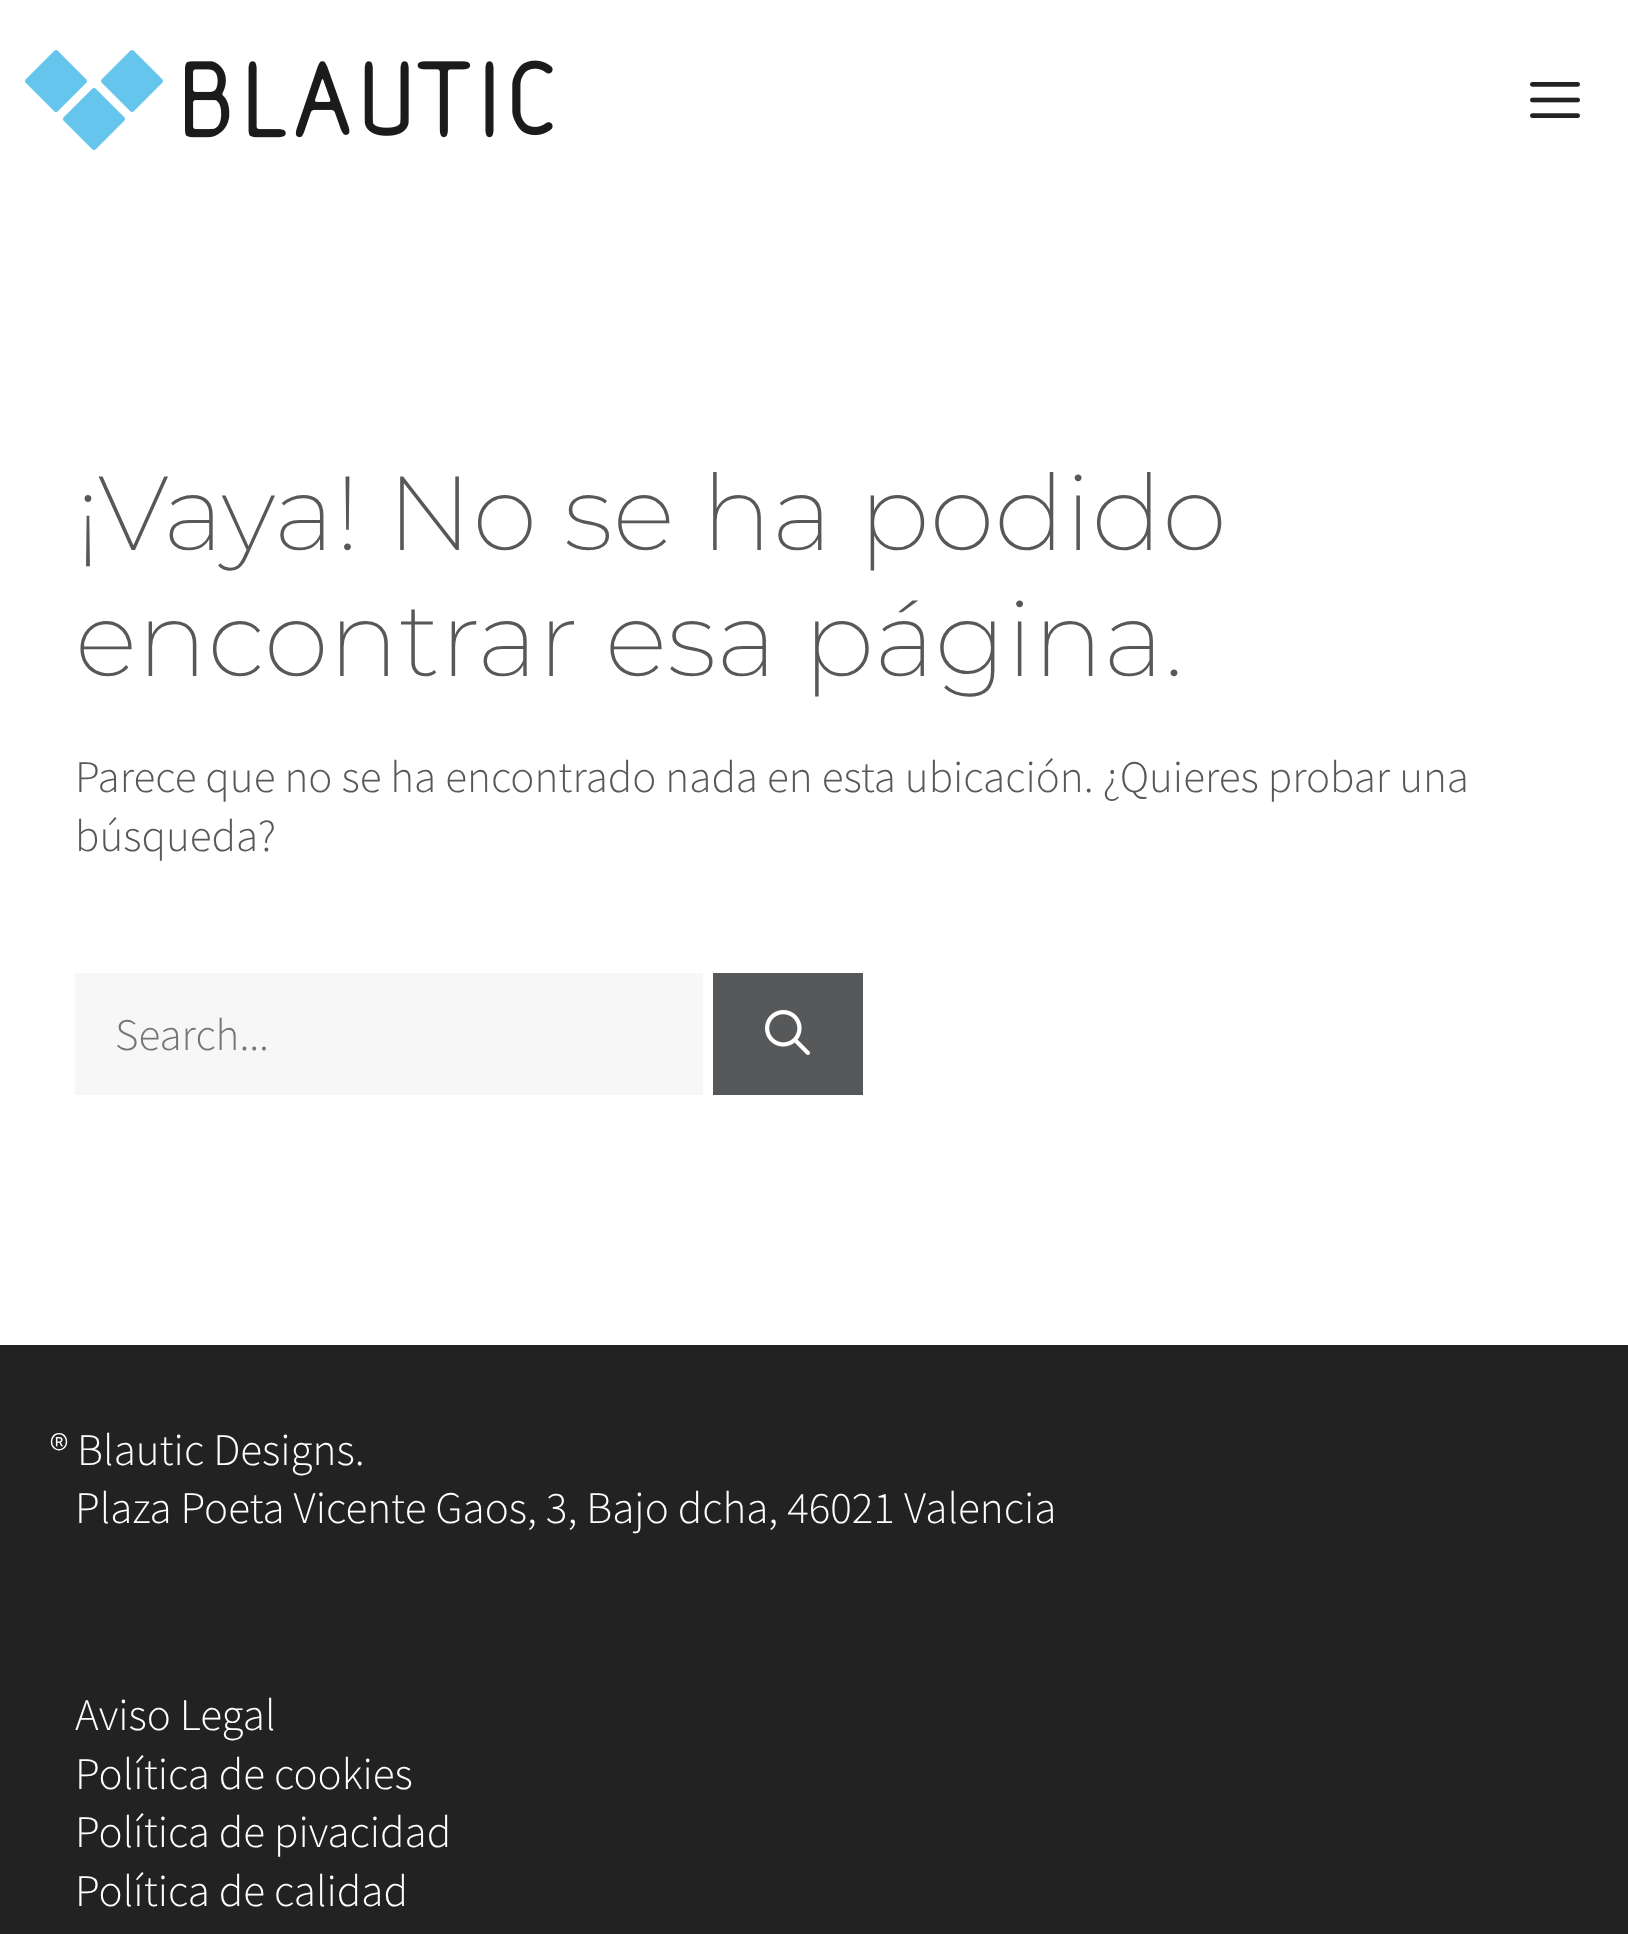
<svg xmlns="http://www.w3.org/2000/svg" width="1628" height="1934">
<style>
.a{font:100 105px Montserrat;fill:#57585a}
.b{font:300 45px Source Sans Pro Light;fill:#57585a}
.c{font:300 45px Source Sans Pro Light;fill:#757575}
.d{font:300 45px Source Sans Pro Light;fill:#fff}
</style>
<rect width="100%" height="100%" fill="#fff"/>
<image href="1.png" x="25" y="50" width="528" height="100"/>
<image href="2.png" x="1530" y="82" width="50" height="36"/>
<path fill="#f7f7f7" d="M75 973h628v122H75z"/>
<path fill="#57585a" d="M713 973h150v122H713z"/>
<image href="3.png" x="765" y="1010" width="45" height="45"/>
<path fill="#222" d="M0 1345h1628v589H0z"/>
<text class="a" x="75" y="550">¡Vaya! No se ha podido</text>
<text class="a" x="75" y="676">encontrar esa página.</text>
<text class="b" x="75" y="792">Parece que no se ha encontrado nada en esta ubicación. ¿Quieres probar una</text>
<text class="b" x="75" y="851">búsqueda?</text>
<text class="c" x="115" y="1050">Search...</text>
<text class="d" x="50" y="1465">® Blautic Designs.</text>
<text class="d" x="75" y="1523">Plaza Poeta Vicente Gaos, 3, Bajo dcha, 46021 Valencia</text>
<text class="d" x="75" y="1730">Aviso Legal</text>
<text class="d" x="75" y="1789">Política de cookies</text>
<text class="d" x="75" y="1847">Política de pivacidad</text>
<text class="d" x="75" y="1906">Política de calidad</text>
</svg>
